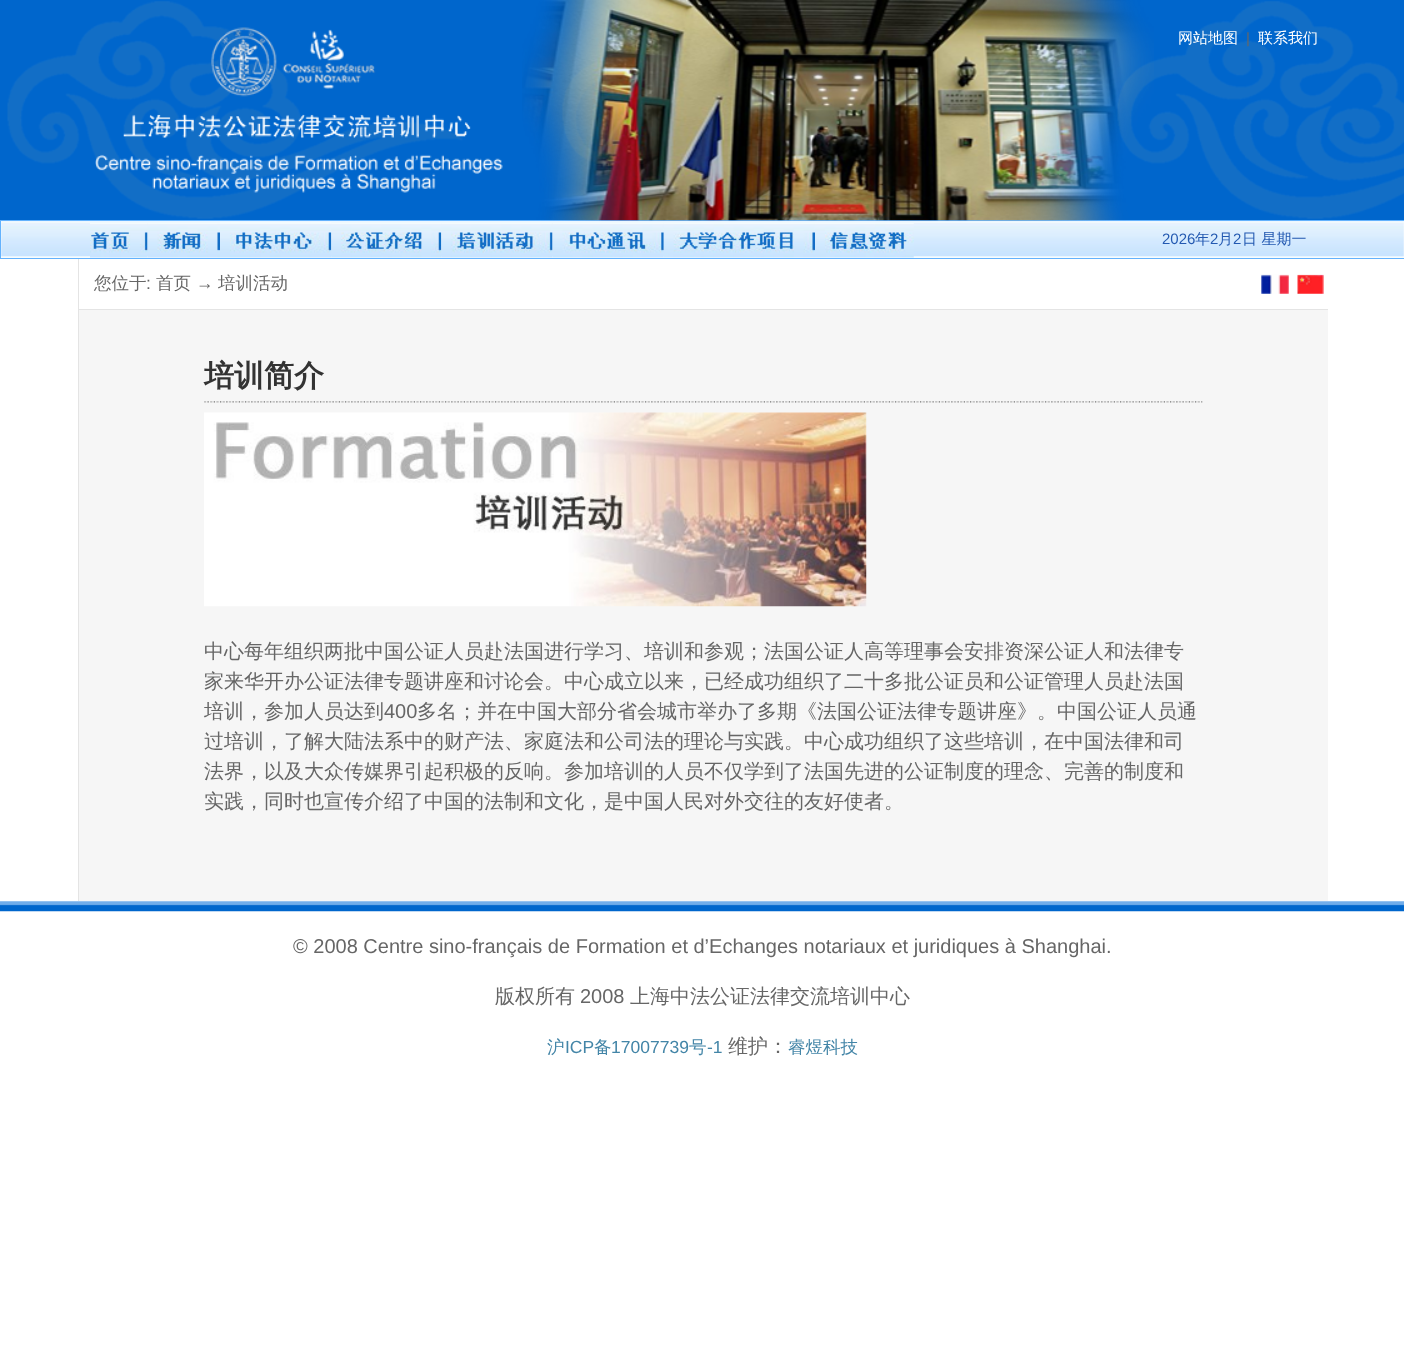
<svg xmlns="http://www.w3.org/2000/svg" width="1404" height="1346">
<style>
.a{font:500 15px WenQuanYi Zen Hei;fill:#fff}
.b{font:15px Liberation Sans;fill:#666}
.c{font:15px Liberation Sans;fill:#2359b1}
.d{font:500 15px WenQuanYi Zen Hei;fill:#2359b1}
.e{font:500 17.5px WenQuanYi Zen Hei;fill:#666}
.f{font:17.5px Liberation Sans;fill:#666}
.g{font:bold 30px WenQuanYi Zen Hei;fill:#333}
.h{font:500 20px WenQuanYi Zen Hei;fill:#666}
.i{font:20px Liberation Sans;fill:#666}
.j{font:500 17.5px WenQuanYi Zen Hei;fill:#4385a7}
.k{font:17.5px Liberation Sans;fill:#4385a7}
</style>
<rect width="100%" height="100%" fill="#fff"/>
<image href="1.png" x="0" y="0" width="1404" height="220"/>
<image href="2.png" x="95" y="27" width="408" height="166"/>
<path fill="#63b2fd" d="M0 220h1404v39H0z"/>
<image href="3.png" x="522" y="0" width="632" height="221"/>
<path fill="#fff" d="M1 221h1403v37H1z"/>
<image href="4.png" x="1" y="221" width="1403" height="37"/>
<image href="5.png" x="90" y="223" width="58" height="35"/>
<image href="6.png" x="147" y="223" width="73" height="35"/>
<image href="7.png" x="220" y="222" width="112" height="36"/>
<image href="8.png" x="331" y="223" width="111" height="35"/>
<image href="9.png" x="441" y="223" width="112" height="35"/>
<image href="10.png" x="552" y="223" width="112" height="35"/>
<image href="11.png" x="663" y="223" width="152" height="35"/>
<image href="12.png" x="815" y="223" width="99" height="35"/>
<path fill="#e4e4e4" d="M78 259h1v642H78z"/>
<image href="13.png" x="1261" y="274" width="28" height="20"/>
<image href="14.png" x="1297" y="274" width="27" height="20"/>
<path fill="#e4e4e4" d="M79 309h1249v1H79z"/>
<path fill="#f6f6f6" d="M79 310h1249v591H79z"/>
<image href="15.png" x="204" y="401" width="999" height="2"/>
<image href="16.png" x="204" y="412" width="663" height="195"/>
<image href="17.png" x="0" y="901" width="1404" height="11"/>
<text class="a" x="1178" y="43">网站地图</text>
<text class="b" x="1246" y="43">|</text>
<text class="a" x="1258" y="43">联系我们</text>
<text class="c" x="1162" y="244">2026</text>
<text class="d" x="1195" y="244">年</text>
<text class="c" x="1210" y="244">2</text>
<text class="d" x="1218" y="244">月</text>
<text class="c" x="1233" y="244">2</text>
<text class="d" x="1242" y="244">日 星期一</text>
<text class="e" x="94" y="289">您位于</text>
<text class="f" x="146" y="289">:</text>
<text class="e" x="156" y="289">首页</text>
<text class="f" x="196" y="289">→</text>
<text class="e" x="218" y="289">培训活动</text>
<text class="g" x="204" y="386">培训简介</text>
<text class="h" x="204" y="658">中心每年组织两批中国公证人员赴法国进行学习、培训和参观；法国公证人高等理事会安排资深公证人和法律专</text>
<text class="h" x="204" y="688">家来华开办公证法律专题讲座和讨论会。中心成立以来，已经成功组织了二十多批公证员和公证管理人员赴法国</text>
<text class="h" x="204" y="718">培训，参加人员达到</text>
<text class="i" x="384" y="718">400</text>
<text class="h" x="417" y="718">多名；并在中国大部分省会城市举办了多期《法国公证法律专题讲座》。中国公证人员通</text>
<text class="h" x="204" y="748">过培训，了解大陆法系中的财产法、家庭法和公司法的理论与实践。中心成功组织了这些培训，在中国法律和司</text>
<text class="h" x="204" y="778">法界，以及大众传媒界引起积极的反响。参加培训的人员不仅学到了法国先进的公证制度的理念、完善的制度和</text>
<text class="h" x="204" y="808">实践，同时也宣传介绍了中国的法制和文化，是中国人民对外交往的友好使者。</text>
<text class="i" x="293" y="953">© 2008 Centre sino-français de Formation et d’Echanges notariaux et juridiques à Shanghai.</text>
<text class="h" x="495" y="1003">版权所有</text>
<text class="i" x="580" y="1003">2008</text>
<text class="h" x="630" y="1003">上海中法公证法律交流培训中心</text>
<text class="j" x="547" y="1053">沪</text>
<text class="k" x="565" y="1053">ICP</text>
<text class="j" x="594" y="1053">备</text>
<text class="k" x="611" y="1053">17007739</text>
<text class="j" x="689" y="1053">号</text>
<text class="k" x="707" y="1053">-1</text>
<text class="h" x="728" y="1053">维护：</text>
<text class="j" x="788" y="1053">睿煜科技</text>
</svg>
